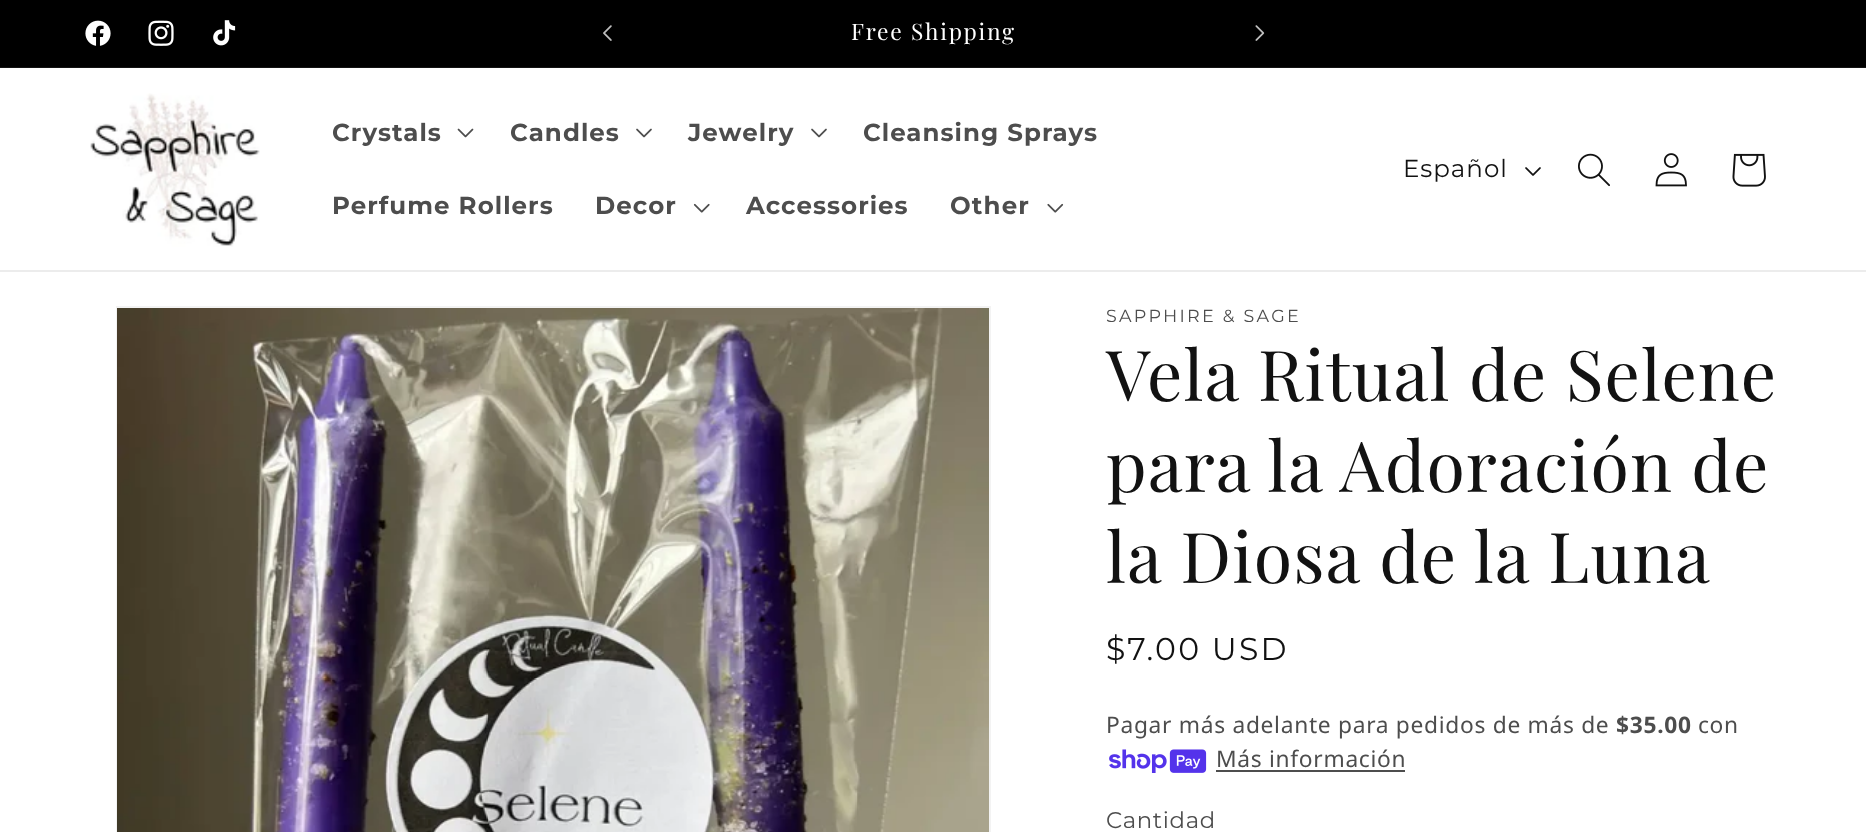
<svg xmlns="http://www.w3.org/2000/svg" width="1866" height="832">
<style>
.a{font:22.75px Playfair Display;letter-spacing:1.75px;fill:#fff}
.b{font:bold 24.5px Montserrat;letter-spacing:1.05px;fill:#4d4d4d}
.c{font:24.5px Montserrat;letter-spacing:1.05px;fill:#121212}
.d{font:17.5px Montserrat;letter-spacing:2.25px;fill:#4d4d4d}
.e{font:70px Playfair Display;letter-spacing:1.05px;fill:#121212}
.f{font:31.5px Montserrat;letter-spacing:2.25px;fill:#121212}
.g{font:22.75px Noto Sans;letter-spacing:0.7px;fill:#4d4d4d}
.h{font:bold 22.75px Noto Sans;letter-spacing:0.7px;fill:#4d4d4d}
.i{font:22.75px Montserrat;letter-spacing:0.7px;fill:#4d4d4d}
</style>
<rect width="100%" height="100%" fill="#fff"/>
<path fill="#000" d="M0 0h1866v67H0z"/>
<path fill="#141414" d="M0 67h1866v1H0z"/>
<image href="1.png" x="85" y="20" width="26" height="26"/>
<image href="2.png" x="148" y="20" width="26" height="26"/>
<image href="3.png" x="213" y="20" width="23" height="26"/>
<image href="4.png" x="603" y="25" width="9" height="16"/>
<image href="5.png" x="1255" y="25" width="10" height="16"/>
<path fill="#ececec" d="M0 270h1866v2H0z"/>
<image href="6.png" x="90" y="93" width="170" height="154"/>
<image href="7.png" x="457" y="128" width="17" height="10"/>
<image href="8.png" x="636" y="128" width="16" height="10"/>
<image href="8.png" x="811" y="128" width="16" height="10"/>
<image href="9.png" x="693" y="203" width="17" height="10"/>
<image href="10.png" x="1047" y="203" width="17" height="10"/>
<image href="11.png" x="1525" y="167" width="16" height="9"/>
<image href="12.png" x="1578" y="153" width="32" height="34"/>
<image href="13.png" x="1655" y="153" width="32" height="34"/>
<image href="14.png" x="1732" y="153" width="34" height="34"/>
<path fill="none" stroke="#f3f3f3" stroke-width="2" d="M117 307h873v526H117z"/>
<image href="15.png" x="117" y="308" width="872" height="524"/>
<image href="16.png" x="1109" y="749" width="98" height="24"/>
<path fill="#4d4d4d" d="M1216 770h189v2H1216z"/>
<text class="a" x="851" y="40">Free Shipping</text>
<text class="b" x="332" y="141">Crystals</text>
<text class="b" x="510" y="141">Candles</text>
<text class="b" x="688" y="141">Jewelry</text>
<text class="b" x="863" y="141">Cleansing Sprays</text>
<text class="b" x="332" y="214">Perfume Rollers</text>
<text class="b" x="595" y="214">Decor</text>
<text class="b" x="746" y="214">Accessories</text>
<text class="b" x="950" y="214">Other</text>
<text class="c" x="1403" y="177">Español</text>
<text class="d" x="1106" y="322">SAPPHIRE &amp; SAGE</text>
<text class="e" x="1106" y="401">Vela Ritual de Selene</text>
<text class="e" x="1106" y="492">para la Adoración de</text>
<text class="e" x="1106" y="583">la Diosa de la Luna</text>
<text class="f" x="1106" y="660">$7.00 USD</text>
<text class="g" x="1106" y="733">Pagar más adelante para pedidos de más de</text>
<text class="h" x="1616" y="733">$35.00</text>
<text class="g" x="1698" y="733">con</text>
<text class="g" x="1216" y="767">Más información</text>
<text class="i" x="1106" y="828">Cantidad</text>
</svg>
